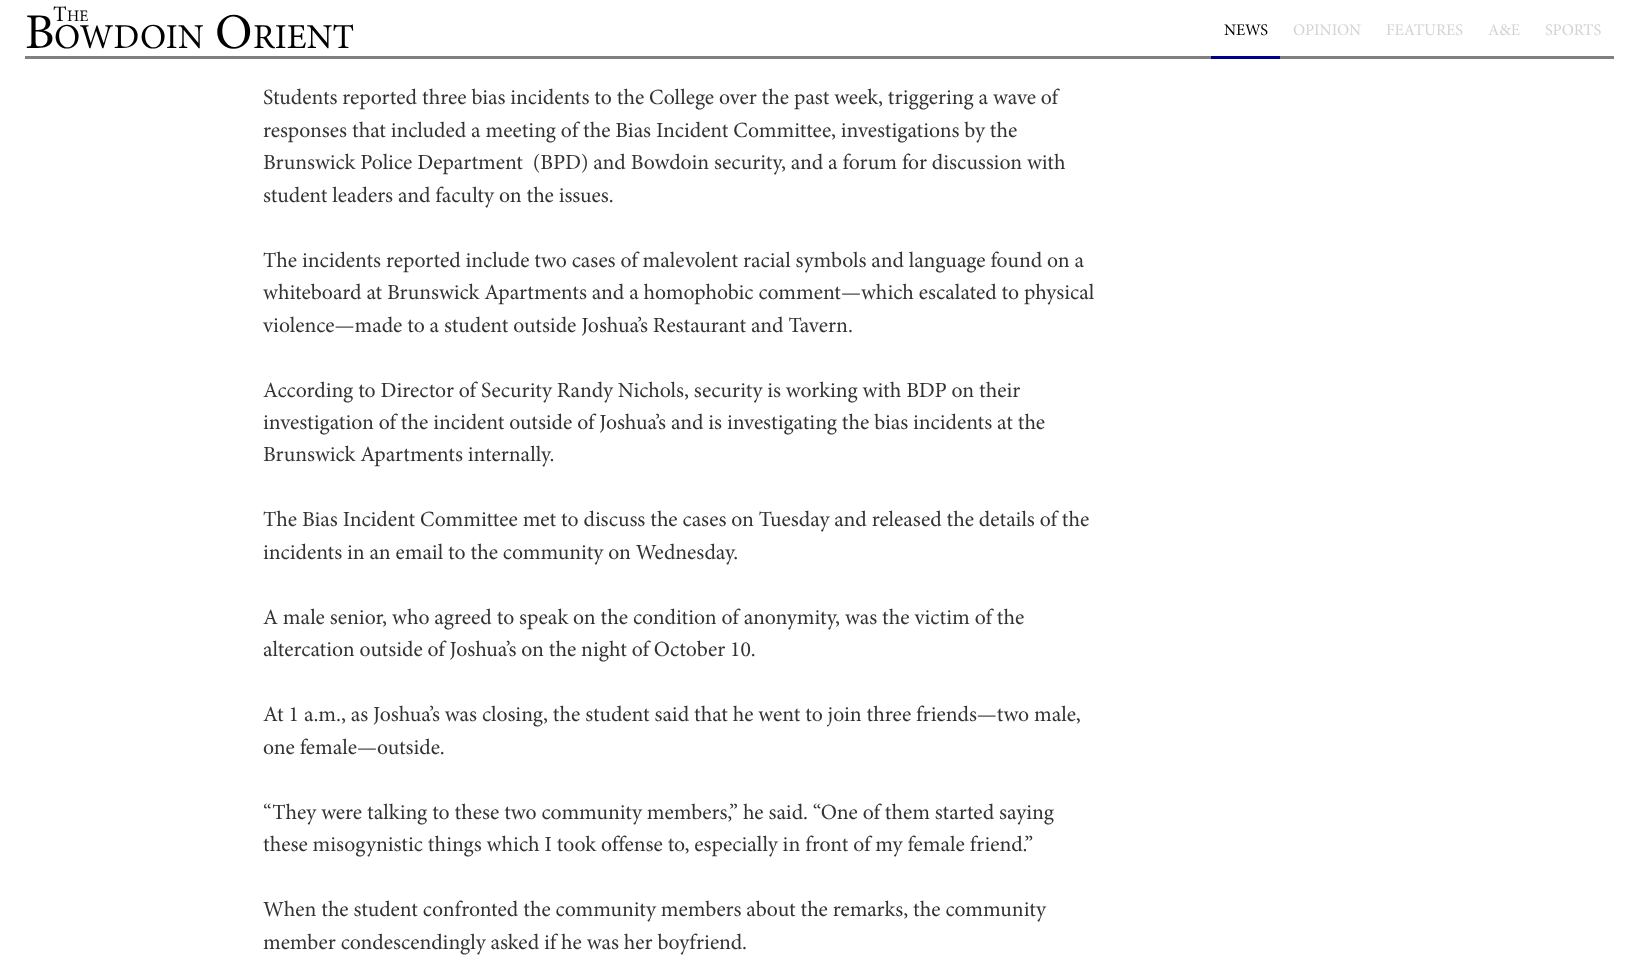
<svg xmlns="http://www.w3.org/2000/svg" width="1638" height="959">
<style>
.a{font:50px Minion;fill:#000}
.b{font:22px Minion;fill:#000}
.c{font:16px Minion;fill:#000}
.d{font:35px Minion;fill:#000}
.e{font:16.25px Minion;fill:#000}
.f{font:16.25px Minion;fill:#d3d3d3}
.g{font:21.65px Minion;fill:#333}
</style>
<rect width="100%" height="100%" fill="#fff"/>
<path fill="#808080" d="M25 56h1589v3H25z"/>
<path fill="#00008b" d="M1211 56h69v3H1211z"/>
<text class="a" x="25" y="48">B</text>
<text class="b" x="53" y="21">T</text>
<text class="c" x="67" y="21">HE</text>
<text class="a" x="215" y="48">O</text>
<text class="d" x="54" y="48">OWDOIN</text>
<text class="d" x="253" y="48">RIENT</text>
<text class="e" x="1224" y="35">NEWS</text>
<text class="f" x="1293" y="35">OPINION</text>
<text class="f" x="1386" y="35">FEATURES</text>
<text class="f" x="1488" y="35">A&amp;E</text>
<text class="f" x="1545" y="35">SPORTS</text>
<text class="g" x="263" y="104">Students reported three bias incidents to the College over the past week, triggering a wave of</text>
<text class="g" x="263" y="137">responses that included a meeting of the Bias Incident Committee, investigations by the</text>
<text class="g" xml:space="preserve" x="263" y="169">Brunswick Police Department  (BPD) and Bowdoin security, and a forum for discussion with</text>
<text class="g" x="263" y="202">student leaders and faculty on the issues.</text>
<text class="g" x="263" y="267">The incidents reported include two cases of malevolent racial symbols and language found on a</text>
<text class="g" x="263" y="299">whiteboard at Brunswick Apartments and a homophobic comment—which escalated to physical</text>
<text class="g" x="263" y="332">violence—made to a student outside Joshua’s Restaurant and Tavern.</text>
<text class="g" x="263" y="397">According to Director of Security Randy Nichols, security is working with BDP on their</text>
<text class="g" x="263" y="429">investigation of the incident outside of Joshua’s and is investigating the bias incidents at the</text>
<text class="g" x="263" y="461">Brunswick Apartments internally.</text>
<text class="g" x="263" y="526">The Bias Incident Committee met to discuss the cases on Tuesday and released the details of the</text>
<text class="g" x="263" y="559">incidents in an email to the community on Wednesday.</text>
<text class="g" x="263" y="624">A male senior, who agreed to speak on the condition of anonymity, was the victim of the</text>
<text class="g" x="263" y="656">altercation outside of Joshua’s on the night of October 10.</text>
<text class="g" x="263" y="721">At 1 a.m., as Joshua’s was closing, the student said that he went to join three friends—two male,</text>
<text class="g" x="263" y="754">one female—outside.</text>
<text class="g" x="263" y="819">“They were talking to these two community members,” he said. “One of them started saying</text>
<text class="g" x="263" y="851">these misogynistic things which I took offense to, especially in front of my female friend.”</text>
<text class="g" x="263" y="916">When the student confronted the community members about the remarks, the community</text>
<text class="g" x="263" y="949">member condescendingly asked if he was her boyfriend.</text>
</svg>
